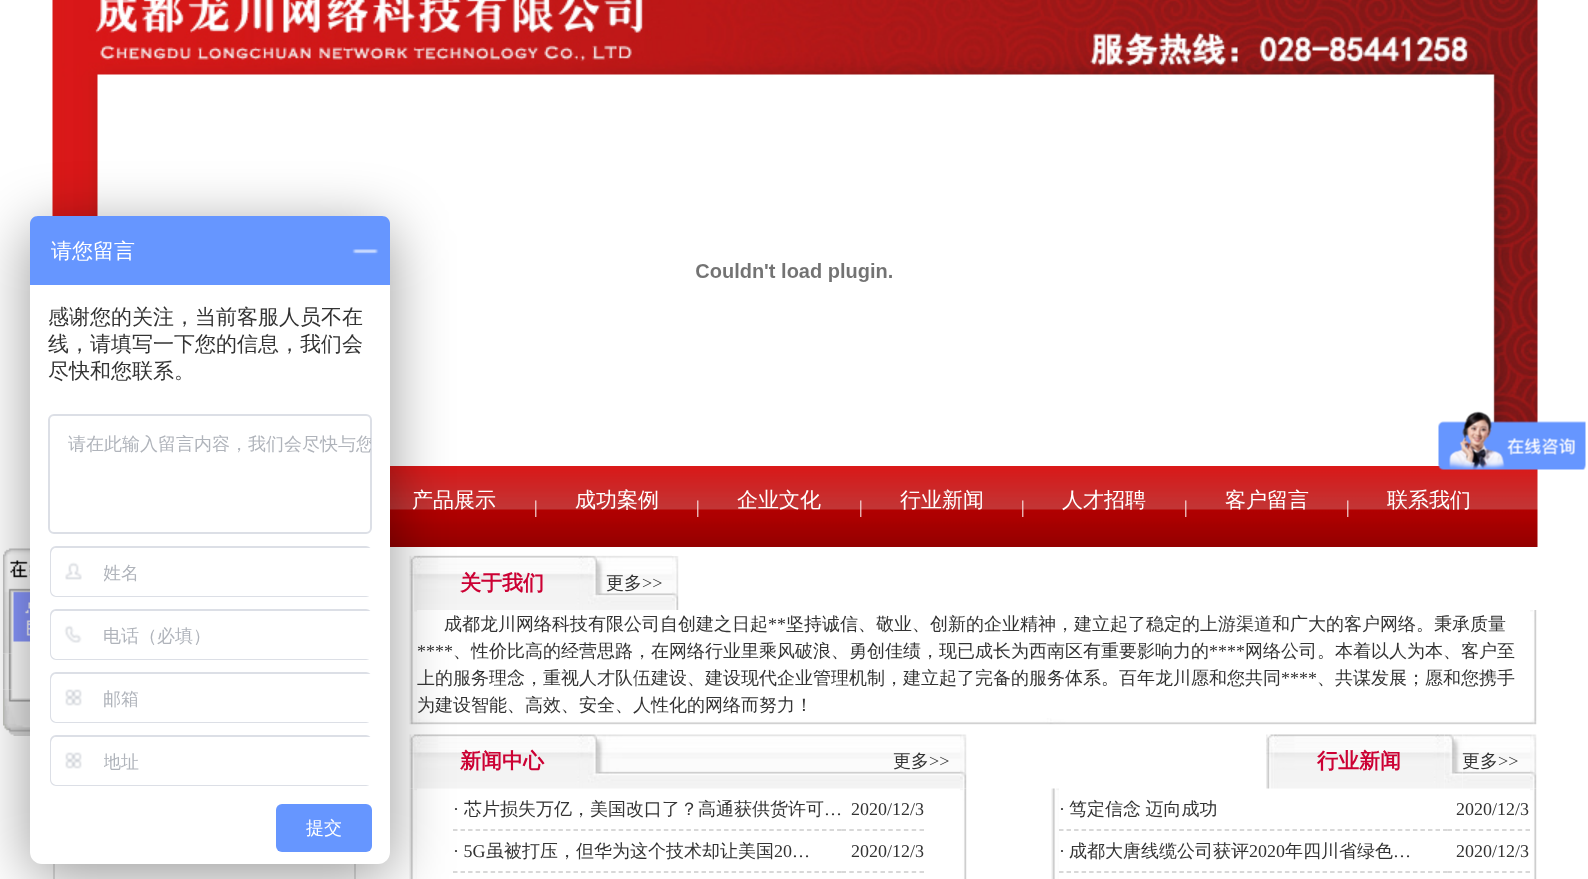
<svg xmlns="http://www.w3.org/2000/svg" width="1588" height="879">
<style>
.a{font:500 21px WenQuanYi Zen Hei;fill:#fff}
.b{font:500 21px WenQuanYi Zen Hei;fill:#333}
.c{font:500 18px WenQuanYi Zen Hei;fill:#b0b4bb}
.d{font:500 18px WenQuanYi Zen Hei;fill:#fff}
.e{font:18px Liberation Serif;fill:#fff}
.f{font:bold 21px WenQuanYi Zen Hei;fill:#c03}
.g{font:500 18px WenQuanYi Zen Hei;fill:#333}
.h{font:18px Liberation Serif;fill:#333}
</style>
<defs>
<clipPath id="clip1"><rect x="50" y="416" width="321" height="117" rx="5"/></clipPath>
<clipPath id="clip2"><path d="M104 561h271v26H104z"/></clipPath>
<clipPath id="clip3"><path d="M104 750h271v26H104z"/></clipPath>
</defs>
<rect width="100%" height="100%" fill="#fff"/>
<image href="1.png" x="52" y="0" width="1486" height="466"/>
<image href="2.png" x="696" y="263" width="196" height="19"/>
<image href="8.png" x="390" y="466" width="1148" height="81"/>
<image href="10.png" x="3" y="653" width="27" height="37"/>
<image href="9.png" x="3" y="548" width="27" height="106"/>
<image href="11.png" x="3" y="689" width="27" height="47"/>
<path fill="none" stroke="#dfdfdf" stroke-width="2" d="M54 604h301v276H54z"/>
<image href="12.png" x="409" y="555" width="8" height="55"/>
<image href="13.png" x="417" y="555" width="171" height="55"/>
<image href="17.png" x="409" y="610" width="8" height="108"/>
<image href="19.png" x="409" y="718" width="8" height="7"/>
<image href="20.png" x="417" y="718" width="1113" height="7"/>
<image href="27.png" x="409" y="788" width="8" height="91"/>
<image href="22.png" x="409" y="734" width="8" height="55"/>
<image href="23.png" x="417" y="734" width="171" height="55"/>
<path fill="none" stroke="#ccc" stroke-width="1.5" stroke-dasharray="4.5 3.03" d="M453 830h388.5"/>
<path fill="none" stroke="#ccc" stroke-width="1.5" stroke-dasharray="4.5 3.03" d="M453 872h388.5"/>
<rect fill="#00000066" filter="blur(30px)" x="30" y="228" width="360" height="648" rx="12"/>
<rect fill="#fff" x="30" y="216" width="360" height="648" rx="12"/>
<path fill="#6696ff" d="M38 216h344c4.5 0 8 3.5 8 8v61h-360v-61c0-4.5 3.5-8 8-8z"/>
<image href="3.png" x="352" y="249" width="27" height="6"/>
<rect fill="none" stroke="#dcdfe6" stroke-width="2" x="49" y="415" width="322" height="118" rx="5"/>
<rect fill="none" stroke="#dcdfe6" stroke-width="2" x="51" y="547" width="320" height="49" rx="5"/>
<path fill="#fff" d="M57 548h47v48h-47c-3.5 0-6-2.5-6-6v-36c0-3.5 2.5-6 6-6z"/>
<image href="4.png" x="65" y="562" width="17" height="18"/>
<path fill="#fff" d="M104 548h268v48H104z"/>
<rect fill="none" stroke="#dcdfe6" stroke-width="2" x="51" y="610" width="320" height="49" rx="5"/>
<path fill="#fff" d="M57 611h47v48h-47c-3.5 0-6-2.5-6-6v-36c0-3.5 2.5-6 6-6z"/>
<image href="5.png" x="64" y="625" width="18" height="18"/>
<path fill="#fff" d="M104 611h268v48H104z"/>
<rect fill="none" stroke="#dcdfe6" stroke-width="2" x="51" y="673" width="320" height="49" rx="5"/>
<path fill="#fff" d="M57 674h47v48h-47c-3.5 0-6-2.5-6-6v-36c0-3.5 2.5-6 6-6z"/>
<image href="6.png" x="65" y="689" width="17" height="17"/>
<path fill="#fff" d="M104 674h268v48H104z"/>
<rect fill="none" stroke="#dcdfe6" stroke-width="2" x="51" y="736" width="320" height="49" rx="5"/>
<path fill="#fff" d="M57 737h47v48h-47c-3.5 0-6-2.5-6-6v-36c0-3.5 2.5-6 6-6z"/>
<image href="6.png" x="65" y="752" width="17" height="17"/>
<path fill="#fff" d="M104 737h268v48H104z"/>
<rect fill="#6696ff" x="276" y="804" width="96" height="48" rx="6"/>
<image href="7.png" x="1438" y="411" width="148" height="59"/>
<image href="14.png" x="588" y="555" width="18" height="55"/>
<image href="15.png" x="606" y="555" width="66" height="55"/>
<image href="16.png" x="672" y="556" width="7" height="54"/>
<image href="18.png" x="1530" y="610" width="7" height="108"/>
<image href="21.png" x="1530" y="718" width="7" height="7"/>
<image href="24.png" x="588" y="734" width="18" height="55"/>
<image href="25.png" x="606" y="734" width="354" height="55"/>
<image href="28.png" x="960" y="788" width="7" height="91"/>
<image href="26.png" x="960" y="734" width="7" height="55"/>
<path fill="none" stroke="#ccc" stroke-width="1.5" stroke-dasharray="4.5 3.3" d="M841.5 830h82.5"/>
<path fill="none" stroke="#ccc" stroke-width="1.5" stroke-dasharray="4.5 3.3" d="M841.5 872h82.5"/>
<image href="30.png" x="1273" y="734" width="172" height="55"/>
<image href="29.png" x="1266" y="734" width="8" height="55"/>
<image href="32.png" x="1462" y="734" width="68" height="55"/>
<image href="31.png" x="1444" y="734" width="19" height="55"/>
<image href="28.png" x="1530" y="788" width="7" height="91"/>
<image href="26.png" x="1530" y="734" width="7" height="55"/>
<image href="27.png" x="1051" y="788" width="8" height="91"/>
<path fill="none" stroke="#ccc" stroke-width="1.5" stroke-dasharray="4.5 3.03" d="M1059 830h388.5"/>
<path fill="none" stroke="#ccc" stroke-width="1.5" stroke-dasharray="4.5 3.3" d="M1447.5 830h82.5"/>
<path fill="none" stroke="#ccc" stroke-width="1.5" stroke-dasharray="4.5 3.03" d="M1059 872h388.5"/>
<path fill="none" stroke="#ccc" stroke-width="1.5" stroke-dasharray="4.5 3.3" d="M1447.5 872h82.5"/>
<text class="a" x="51" y="258">请您留言</text>
<text class="b" x="48" y="324">感谢您的关注，当前客服人员不在</text>
<text class="b" x="48" y="351">线，请填写一下您的信息，我们会</text>
<text class="b" x="48" y="378">尽快和您联系。</text>
<g clip-path="url(#clip1)">
<text class="c" x="68" y="450">请在此输入留言内容，我们会尽快与您</text>
</g>
<g clip-path="url(#clip2)">
<text class="c" x="103" y="579">姓名</text>
</g>
<text class="c" x="103" y="642">电话（必填）</text>
<text class="c" x="103" y="705">邮箱</text>
<g clip-path="url(#clip3)">
<text class="c" x="103" y="768">地址</text>
</g>
<text class="d" x="306" y="834">提交</text>
<text class="a" x="412" y="507">产品展示</text>
<text class="e" x="534" y="513">|</text>
<text class="a" x="575" y="507">成功案例</text>
<text class="e" x="696" y="513">|</text>
<text class="a" x="737" y="507">企业文化</text>
<text class="e" x="859" y="513">|</text>
<text class="a" x="900" y="507">行业新闻</text>
<text class="e" x="1021" y="513">|</text>
<text class="a" x="1062" y="507">人才招聘</text>
<text class="e" x="1184" y="513">|</text>
<text class="a" x="1225" y="507">客户留言</text>
<text class="e" x="1346" y="513">|</text>
<text class="a" x="1387" y="507">联系我们</text>
<text class="f" x="460" y="590">关于我们</text>
<text class="g" x="606" y="589">更多</text>
<text class="h" x="642" y="589">&gt;&gt;</text>
<text class="g" x="444" y="630">成都龙川网络科技有限公司自创建之日起</text>
<text class="h" x="768" y="630">**</text>
<text class="g" x="786" y="630">坚持诚信、敬业、创新的企业精神，建立起了稳定的上游渠道和广大的客户网络。秉承质量</text>
<text class="h" x="417" y="657">****</text>
<text class="g" x="453" y="657">、性价比高的经营思路，在网络行业里乘风破浪、勇创佳绩，现已成长为西南区有重要影响力的</text>
<text class="h" x="1209" y="657">****</text>
<text class="g" x="1245" y="657">网络公司。本着以人为本、客户至</text>
<text class="g" x="417" y="684">上的服务理念，重视人才队伍建设、建设现代企业管理机制，建立起了完备的服务体系。百年龙川愿和您共同</text>
<text class="h" x="1281" y="684">****</text>
<text class="g" x="1317" y="684">、共谋发展；愿和您携手</text>
<text class="g" x="417" y="711">为建设智能、高效、安全、人性化的网络而努力！</text>
<text class="f" x="460" y="768">新闻中心</text>
<text class="g" x="893" y="767">更多</text>
<text class="h" x="929" y="767">&gt;&gt;</text>
<text class="h" x="453" y="815">·</text>
<text class="g" x="464" y="815">芯片损失万亿，美国改口了？高通获供货许可</text>
<text class="h" x="824" y="815">…</text>
<text class="h" x="851" y="815">2020/12/3</text>
<text class="h" x="453" y="857">· 5G</text>
<text class="g" x="486" y="857">虽被打压，但华为这个技术却让美国</text>
<text class="h" x="774" y="857">20…</text>
<text class="h" x="851" y="857">2020/12/3</text>
<text class="f" x="1317" y="768">行业新闻</text>
<text class="g" x="1462" y="767">更多</text>
<text class="h" x="1498" y="767">&gt;&gt;</text>
<text class="h" x="1059" y="815">·</text>
<text class="g" x="1069" y="815" word-spacing="-1">笃定信念 迈向成功</text>
<text class="h" x="1456" y="815">2020/12/3</text>
<text class="h" x="1059" y="857">·</text>
<text class="g" x="1069" y="857">成都大唐线缆公司获评</text>
<text class="h" x="1249" y="857">2020</text>
<text class="g" x="1285" y="857">年四川省绿色</text>
<text class="h" x="1393" y="857">…</text>
<text class="h" x="1456" y="857">2020/12/3</text>
</svg>
